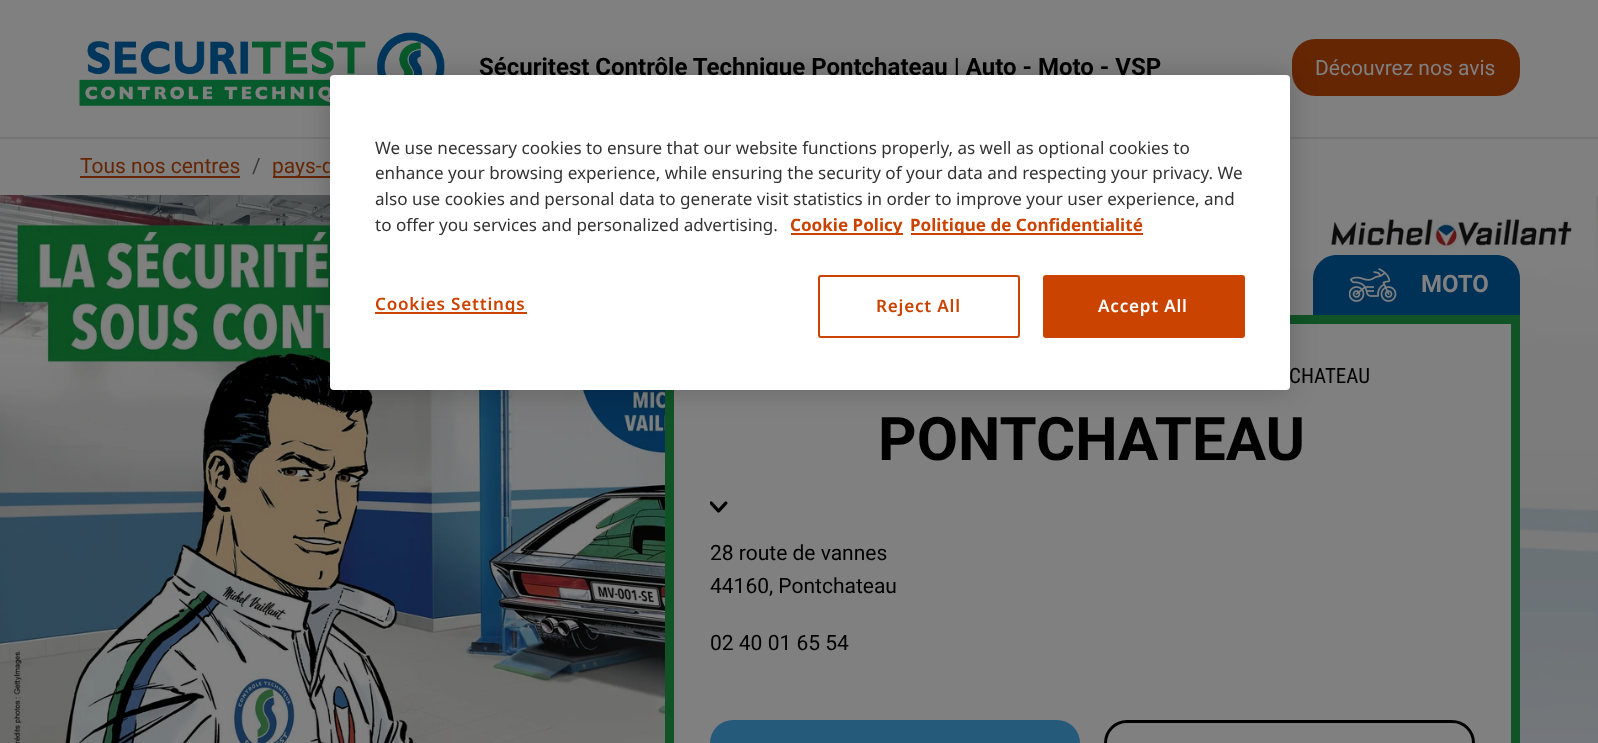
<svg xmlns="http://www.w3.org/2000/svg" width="1598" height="743">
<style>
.a{font:bold 24px Roboto;fill:#000}
.b{font:21px Roboto;fill:#808080}
.c{font:21px Roboto;fill:#652604}
.d{font:21px Roboto;fill:#3b3b3b}
.e{font:bold 24px Roboto;fill:#808080}
.f{font:21px Roboto Condensed;fill:#000}
.g{font:bold 60px Roboto;fill:#000}
.h{font:21px Roboto;fill:#000}
.i{font:17.07px Noto Sans;fill:#333}
.j{font:bold 17.07px Noto Sans;fill:#ca4300}
.k{font:600 17.07px Noto Sans;letter-spacing:0.8px;fill:#ca4300}
.l{font:600 17.07px Noto Sans;letter-spacing:0.8px;fill:#fff}
</style>
<rect width="100%" height="100%" fill="#808080"/>
<path fill="#737476" d="M0 137h1598v2H0z"/>
<image href="1.png" x="79" y="32" width="376" height="74"/>
<rect fill="#652604" x="1292" y="39" width="228" height="57" rx="23"/>
<path fill="#652604" d="M80 176h160v2H80z"/>
<path fill="#652604" d="M273 176h57v2H273z"/>
<image href="2.png" x="0" y="195" width="1598" height="548"/>
<path fill="#003156" d="M1337 255h159c13.5 0 24 10.5 24 24v36h-207v-36c0-13.5 10.5-24 24-24z"/>
<image href="3.png" x="1349" y="268" width="48" height="34"/>
<path fill="#808080" stroke="#105326" stroke-width="9" d="M669.5 319.5h846v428H669.5z"/>
<image href="4.png" x="710" y="501" width="18" height="12"/>
<rect fill="#265a7b" x="710" y="720" width="370" height="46" rx="23"/>
<rect fill="none" stroke="#000" stroke-width="3" x="1105.5" y="721.5" width="368" height="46" rx="21.5"/>
<rect fill="#00000033" filter="blur(13.5px)" x="330" y="75" width="960" height="315" rx="4"/>
<text class="a" x="479" y="75">Sécuritest Contrôle Technique Pontchateau | Auto - Moto - VSP</text>
<text class="b" x="1315" y="75">Découvrez nos avis</text>
<text class="c" x="80" y="173">Tous nos centres</text>
<text class="d" x="252" y="173">/</text>
<text class="c" x="272" y="173">pays-d</text>
<text class="e" x="1421" y="292">MOTO</text>
<text class="f" x="1289" y="383">CHATEAU</text>
<text class="g" x="878" y="460">PONTCHATEAU</text>
<text class="h" x="710" y="560">28 route de vannes</text>
<text class="h" x="710" y="593">44160, Pontchateau</text>
<text class="h" x="710" y="650">02 40 01 65 54</text>
<rect fill="#fff" x="330" y="75" width="960" height="315" rx="4"/>
<text class="i" x="375" y="154">We use necessary cookies to ensure that our website functions properly, as well as optional cookies to</text>
<text class="i" x="375" y="179">enhance your browsing experience, while ensuring the security of your data and respecting your privacy. We</text>
<text class="i" x="375" y="205">also use cookies and personal data to generate visit statistics in order to improve your user experience, and</text>
<text class="i" x="375" y="231">to offer you services and personalized advertising.</text>
<path fill="#ca4300" d="M791 233h112v2H791z"/>
<text class="j" x="790" y="231">Cookie Policy</text>
<path fill="#ca4300" d="M911 233h232v2H911z"/>
<text class="j" x="910" y="231">Politique de Confidentialité</text>
<path fill="#ca4300" d="M375 312h152v2H375z"/>
<text class="k" x="375" y="310">Cookies Settings</text>
<rect fill="none" stroke="#ca4300" stroke-width="2" x="819" y="276" width="200" height="61" rx="2"/>
<text class="k" x="876" y="312">Reject All</text>
<rect fill="#ca4300" stroke="#ca4300" stroke-width="2" x="1044" y="276" width="200" height="61" rx="2"/>
<text class="l" x="1098" y="312">Accept All</text>
</svg>
